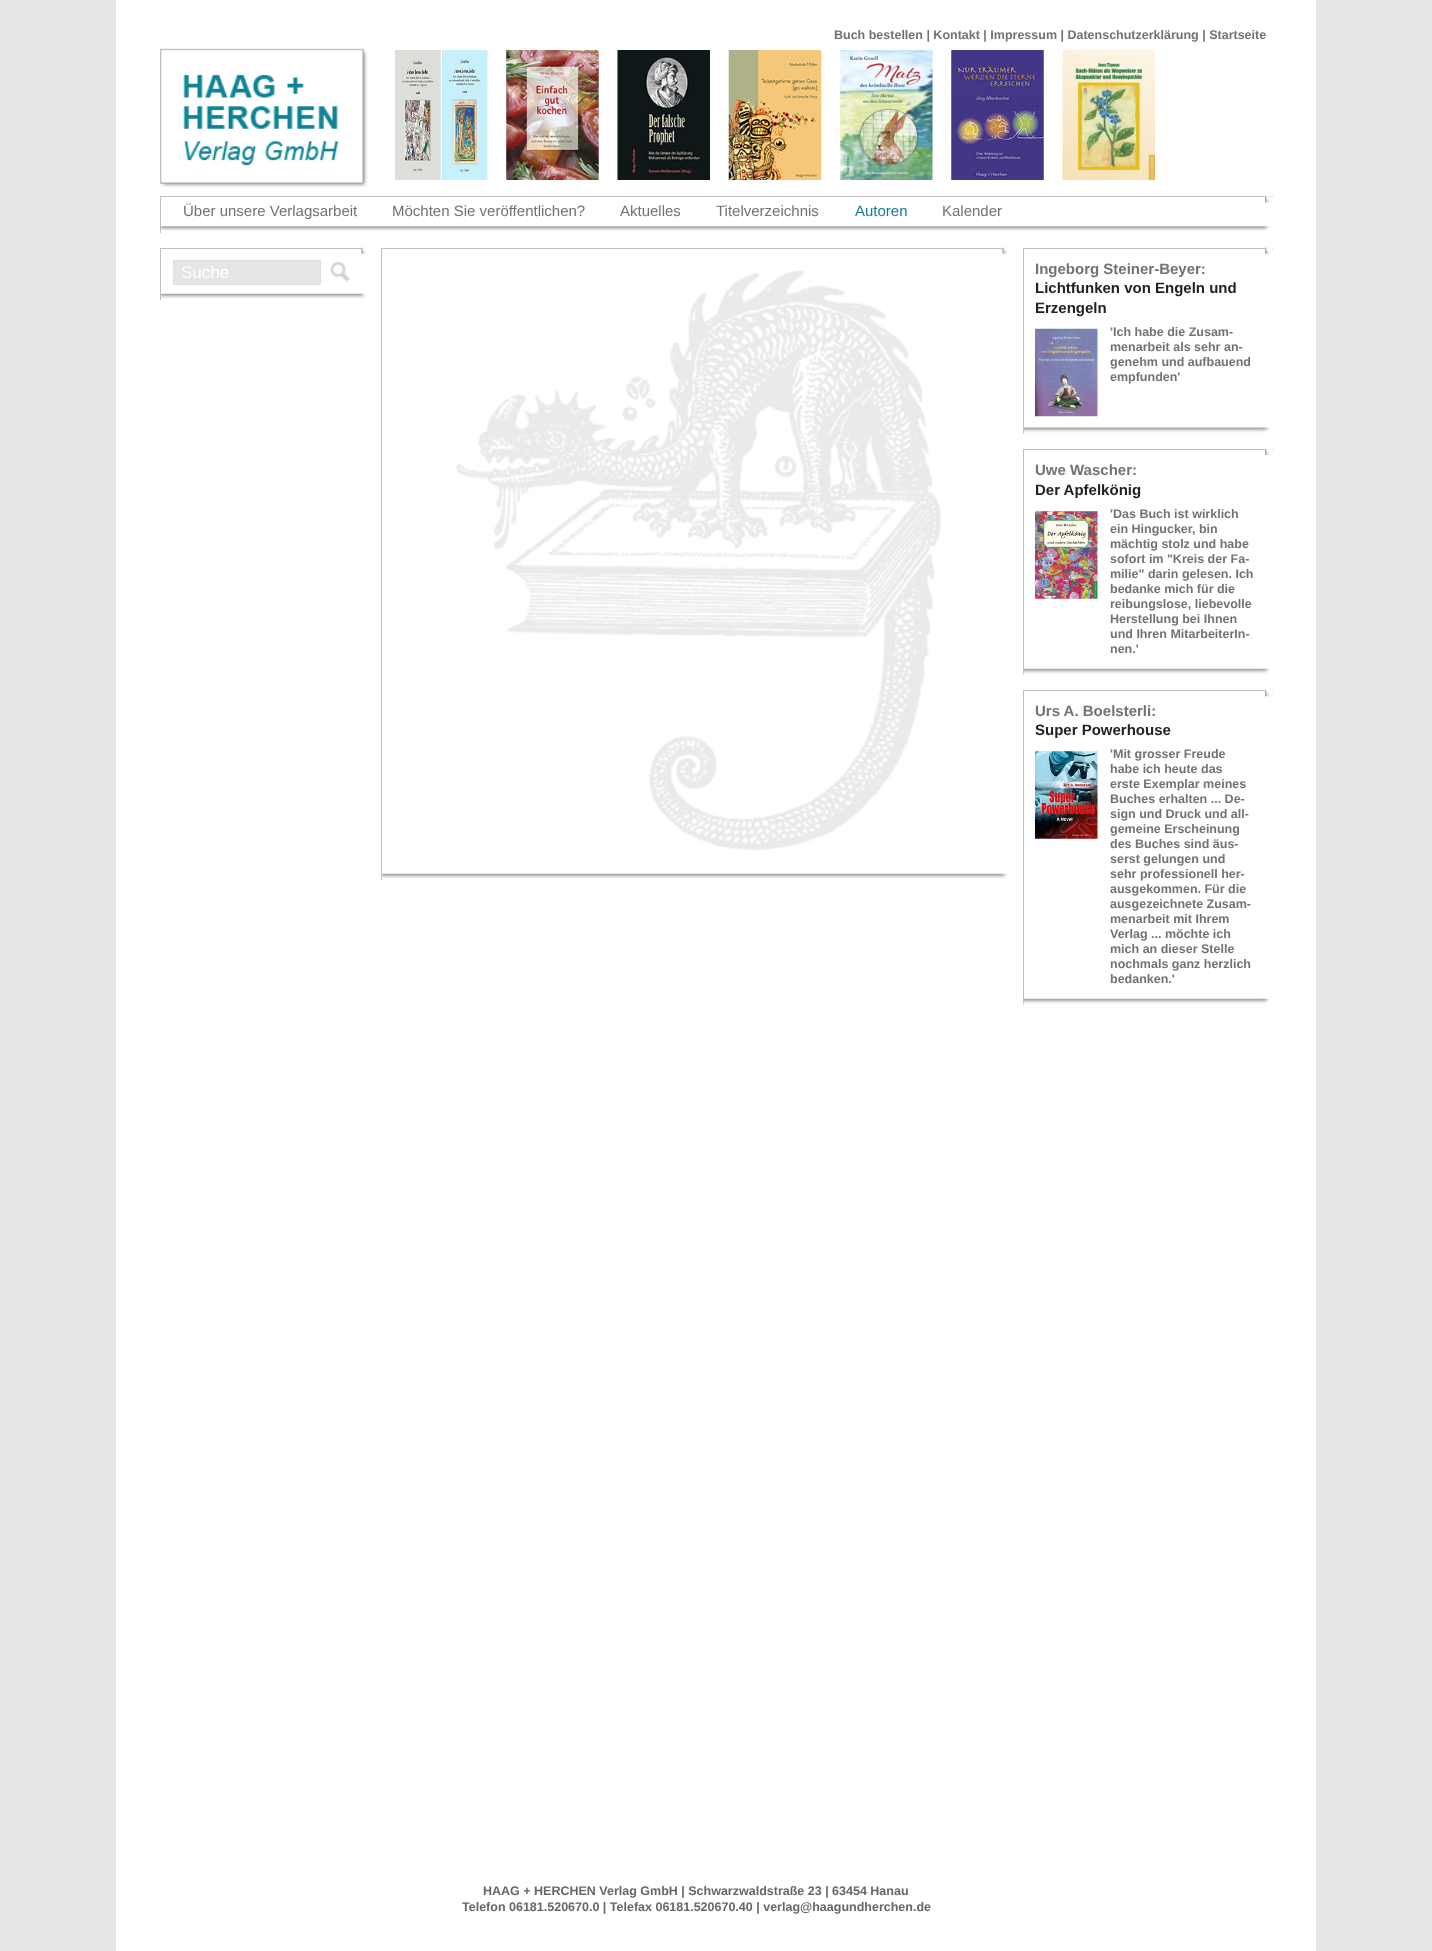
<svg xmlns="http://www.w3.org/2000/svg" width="1432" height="1951">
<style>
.a{font:bold 12.5px Liberation Sans;fill:#727272}
.b{font:15px Liberation Sans;fill:#727272}
.c{font:15px Liberation Sans;fill:#0f7d96}
.d{font:17px Liberation Sans;fill:#fff}
.e{font:bold 15px Liberation Sans;fill:#727272}
.f{font:bold 15px Liberation Sans;fill:#222}
.g{font:bold 12.5px Liberation Sans;fill:#666}
</style>
<rect width="100%" height="100%" fill="#e5e5e5"/>
<path fill="#fff" d="M116 0h1200v1951H116z"/>
<image href="1.png" x="160" y="48" width="208" height="140"/>
<image href="2.png" x="395" y="50" width="93" height="130"/>
<image href="3.png" x="506" y="50" width="93" height="130"/>
<image href="4.png" x="617" y="50" width="93" height="130"/>
<image href="5.png" x="728" y="50" width="94" height="130"/>
<image href="6.png" x="840" y="50" width="93" height="130"/>
<image href="7.png" x="951" y="50" width="93" height="130"/>
<image href="8.png" x="1062" y="50" width="93" height="130"/>
<path fill="#bfbfbf" d="M160 196h1113v1H160z"/>
<path fill="#bfbfbf" d="M160 196h1v37H160z"/>
<image href="9.png" x="1265" y="196" width="8" height="7"/>
<image href="10.png" x="161" y="226" width="1109" height="5"/>
<path fill="#bfbfbf" d="M160 248h209v1H160z"/>
<path fill="#bfbfbf" d="M160 248h1v52H160z"/>
<image href="11.png" x="361" y="247" width="8" height="7"/>
<path fill="#e5e5e5" stroke="#dcdcdc" d="M173.5 260.5h147v24H173.5z"/>
<image href="12.png" x="330" y="261" width="20" height="21"/>
<image href="13.png" x="161" y="293" width="205" height="6"/>
<path fill="#bfbfbf" d="M381 248h629v1H381z"/>
<path fill="#bfbfbf" d="M381 248h1v632H381z"/>
<image href="14.png" x="1002" y="247" width="8" height="7"/>
<image href="15.png" x="456" y="270" width="485" height="580"/>
<image href="16.png" x="382" y="873" width="626" height="6"/>
<path fill="#bfbfbf" d="M1023 248h250v1H1023z"/>
<path fill="#bfbfbf" d="M1023 248h1v186H1023z"/>
<image href="17.png" x="1265" y="247" width="8" height="7"/>
<image href="18.png" x="1035" y="328" width="63" height="89"/>
<image href="19.png" x="1023" y="427" width="247" height="7"/>
<path fill="#bfbfbf" d="M1023 449h250v1H1023z"/>
<path fill="#bfbfbf" d="M1023 449h1v226H1023z"/>
<image href="20.png" x="1265" y="448" width="8" height="7"/>
<image href="21.png" x="1035" y="511" width="63" height="88"/>
<image href="22.png" x="1023" y="668" width="247" height="7"/>
<path fill="#bfbfbf" d="M1023 690h250v1H1023z"/>
<path fill="#bfbfbf" d="M1023 690h1v315H1023z"/>
<image href="23.png" x="1265" y="690" width="8" height="7"/>
<image href="24.png" x="1035" y="751" width="63" height="88"/>
<image href="22.png" x="1023" y="998" width="247" height="7"/>
<text class="a" x="834" y="39">Buch bestellen | Kontakt | Impressum | Datenschutzerklärung | Startseite</text>
<text class="b" x="183" y="216">Über unsere Verlagsarbeit</text>
<text class="b" x="392" y="216">Möchten Sie veröffentlichen?</text>
<text class="b" x="620" y="216">Aktuelles</text>
<text class="b" x="716" y="216">Titelverzeichnis</text>
<text class="c" x="855" y="216">Autoren</text>
<text class="b" x="942" y="216">Kalender</text>
<text class="d" x="181" y="278">Suche</text>
<text class="e" x="1035" y="274">Ingeborg Steiner-Beyer:</text>
<text class="f" x="1035" y="293">Lichtfunken von Engeln und</text>
<text class="f" x="1035" y="313">Erzengeln</text>
<text class="a" x="1110" y="336">'Ich habe die Zusam-</text>
<text class="a" x="1110" y="351">menarbeit als sehr an-</text>
<text class="a" x="1110" y="366">genehm und aufbauend</text>
<text class="a" x="1110" y="381">empfunden'</text>
<text class="e" x="1035" y="475">Uwe Wascher:</text>
<text class="f" x="1035" y="495">Der Apfelkönig</text>
<text class="a" x="1110" y="518">'Das Buch ist wirklich</text>
<text class="a" x="1110" y="533">ein Hingucker, bin</text>
<text class="a" x="1110" y="548">mächtig stolz und habe</text>
<text class="a" x="1110" y="563">sofort im "Kreis der Fa-</text>
<text class="a" x="1110" y="578">milie" darin gelesen. Ich</text>
<text class="a" x="1110" y="593">bedanke mich für die</text>
<text class="a" x="1110" y="608">reibungslose, liebevolle</text>
<text class="a" x="1110" y="623">Herstellung bei Ihnen</text>
<text class="a" x="1110" y="638">und Ihren MitarbeiterIn-</text>
<text class="a" x="1110" y="653">nen.'</text>
<text class="e" x="1035" y="716">Urs A. Boelsterli:</text>
<text class="f" x="1035" y="735">Super Powerhouse</text>
<text class="a" x="1110" y="758">'Mit grosser Freude</text>
<text class="a" x="1110" y="773">habe ich heute das</text>
<text class="a" x="1110" y="788">erste Exemplar meines</text>
<text class="a" x="1110" y="803">Buches erhalten ... De-</text>
<text class="a" x="1110" y="818">sign und Druck und all-</text>
<text class="a" x="1110" y="833">gemeine Erscheinung</text>
<text class="a" x="1110" y="848">des Buches sind äus-</text>
<text class="a" x="1110" y="863">serst gelungen und</text>
<text class="a" x="1110" y="878">sehr professionell her-</text>
<text class="a" x="1110" y="893">ausgekommen. Für die</text>
<text class="a" x="1110" y="908">ausgezeichnete Zusam-</text>
<text class="a" x="1110" y="923">menarbeit mit Ihrem</text>
<text class="a" x="1110" y="938">Verlag ... möchte ich</text>
<text class="a" x="1110" y="953">mich an dieser Stelle</text>
<text class="a" x="1110" y="968">nochmals ganz herzlich</text>
<text class="a" x="1110" y="983">bedanken.'</text>
<text class="g" x="483" y="1895">HAAG + HERCHEN Verlag GmbH | Schwarzwaldstraße 23 | 63454 Hanau</text>
<text class="g" x="462" y="1911">Telefon 06181.520670.0 | Telefax 06181.520670.40 | verlag@haagundherchen.de</text>
</svg>
